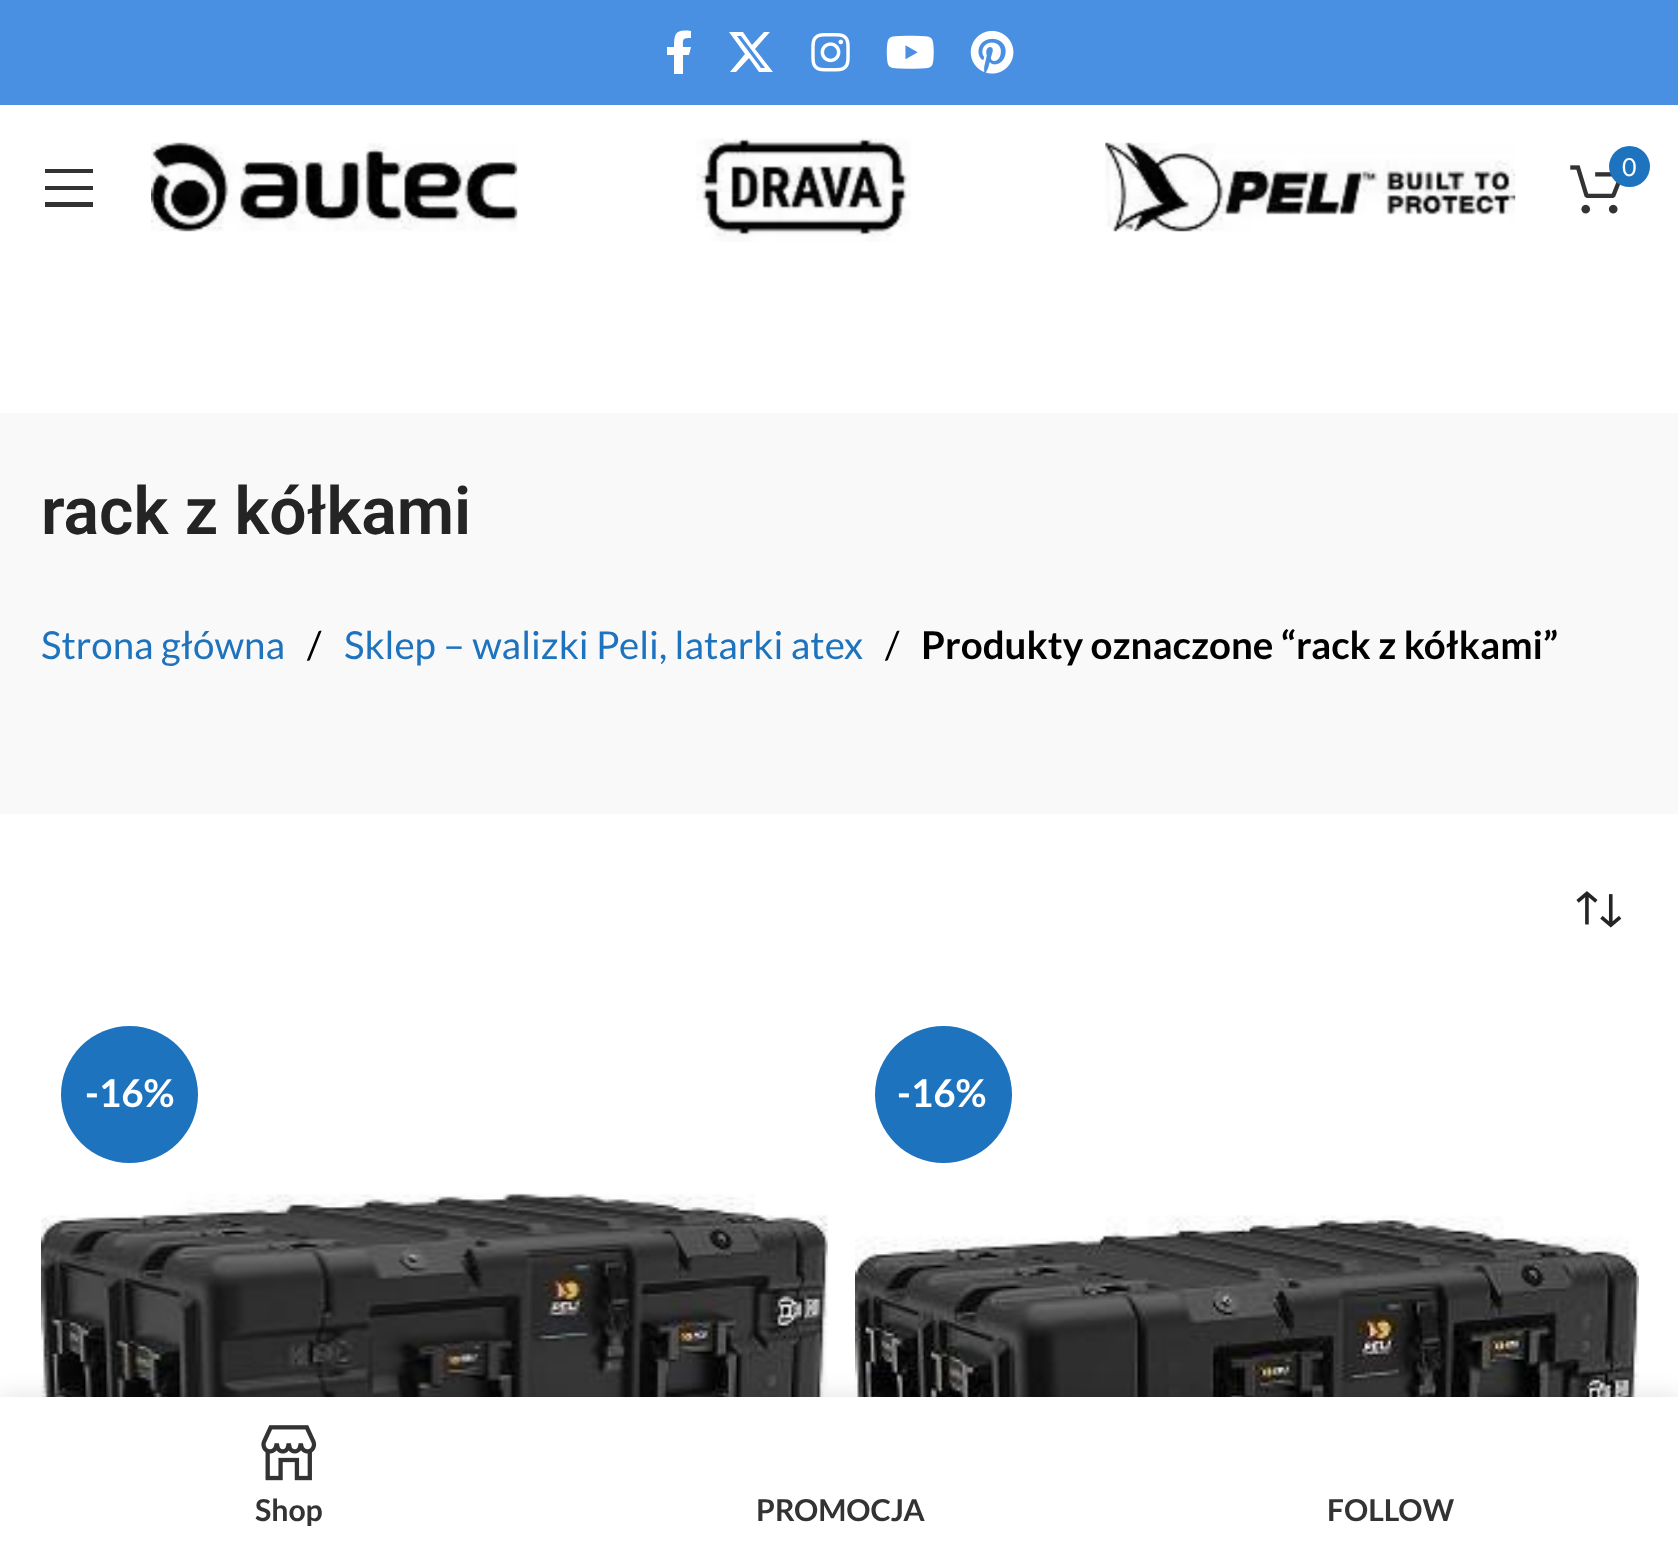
<svg xmlns="http://www.w3.org/2000/svg" width="1678" height="1547">
<style>
.a{font:25px Lato;fill:#fff}
.b{font:600 66px Roboto;fill:#242424}
.c{font:38.5px Lato;fill:#1e73be}
.d{font:38.5px Lato;fill:#000}
.e{font:bold 38.5px Lato;fill:#000}
.f{font:bold 38.5px Lato;fill:#fff}
.g{font:bold 30.25px Lato;fill:#333}
</style>
<defs>
<clipPath id="clip1"><path d="M41 1491h495v35H41z"/></clipPath>
</defs>
<rect width="100%" height="100%" fill="#fff"/>
<path fill="#4a90e2" d="M0 0h1678v105H0z"/>
<path fill="#fff" d="M689 55l2-8h-8c0-8-1-9 8-9v-7c-15-2-17 2-17 16h-7v8h7v19h9v-19z"/>
<path fill="#fff" d="M764 32h6l-15 17l18 23h-14l-10-14l-13 14h-6l15-18l-16-22h14l9 13zm-3 36h4l-24-32h-4z"/>
<image href="1.png" x="811" y="33" width="39" height="39"/>
<image href="2.png" x="886" y="35" width="48" height="34"/>
<image href="3.png" x="970" y="30" width="44" height="44"/>
<path fill="#333" d="M45 173h48v-4h-48zm0 17h48v-4h-48zm0 17h48v-5h-48z"/>
<image href="4.png" x="151" y="142" width="367" height="90"/>
<image href="5.png" x="696" y="138" width="215" height="104"/>
<image href="6.png" x="1105" y="142" width="411" height="90"/>
<image href="7.png" x="1570" y="165" width="51" height="49"/>
<circle fill="#1e73be" cx="1629.5" cy="166.5" r="20.5"/>
<path fill="#f9f9f9" d="M0 413h1678v401H0z"/>
<image href="8.png" x="1576" y="891" width="46" height="37"/>
<circle fill="#1e73be" cx="129.5" cy="1094.5" r="68.5"/>
<image href="9.png" x="41" y="1193" width="787" height="204"/>
<circle fill="#1e73be" cx="943.5" cy="1094.5" r="68.5"/>
<image href="10.png" x="855" y="1215" width="784" height="182"/>
<path fill="#0000001f" filter="blur(12.5px)" d="M0 1397h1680v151H0z"/>
<path fill="#fff" d="M0 1397h1678v150H0z"/>
<image href="11.png" x="261" y="1425" width="56" height="56"/>
<text class="a" x="1622" y="176">0</text>
<text class="b" x="41" y="534">rack z kółkami</text>
<text class="c" x="41" y="659">Strona główna</text>
<text class="d" x="307" y="659">/</text>
<text class="c" x="344" y="659">Sklep – walizki Peli, latarki atex</text>
<text class="d" x="885" y="659">/</text>
<text class="e" x="921" y="659">Produkty oznaczone “rack z kółkami”</text>
<text class="f" x="85" y="1107">-16%</text>
<text class="f" x="897" y="1107">-16%</text>
<g clip-path="url(#clip1)">
<text class="g" x="255" y="1521">Shop</text>
</g>
<text class="g" x="756" y="1521">PROMOCJA</text>
<text class="g" x="1327" y="1521">FOLLOW</text>
</svg>
